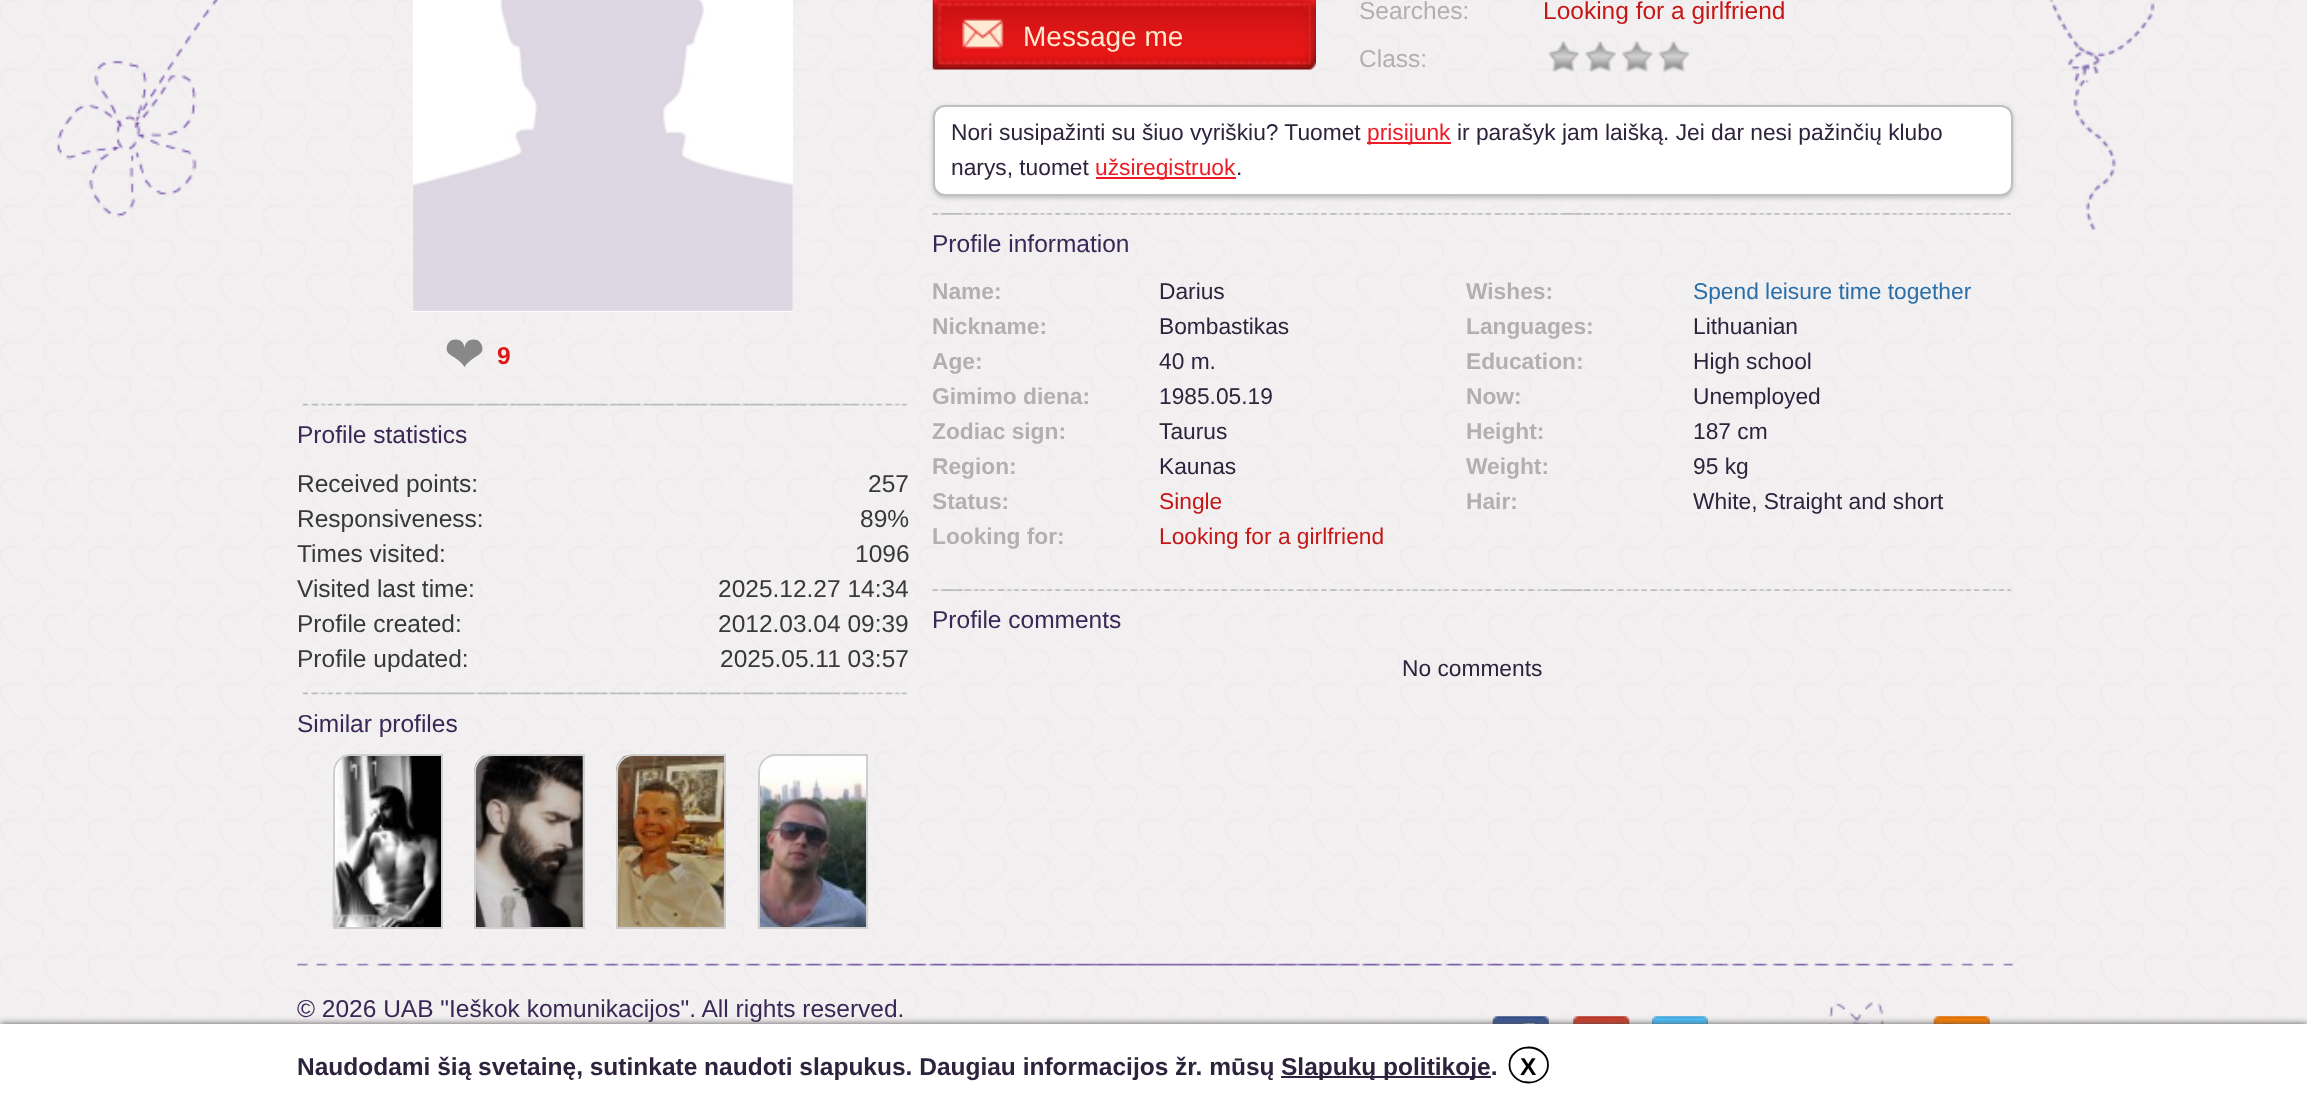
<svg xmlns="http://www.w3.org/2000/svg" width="2307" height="1107">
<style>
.a{font:49px DejaVu Sans;fill:#888}
.b{font:bold 24.5px Liberation Sans;fill:#df1617}
.c{font:24.5px Liberation Sans;fill:#3a2755}
.d{font:24.5px Liberation Sans;fill:#383838}
.e{font:28px Liberation Sans;fill:#fee8ce}
.f{font:24.5px Liberation Sans;fill:#b2afb3}
.g{font:24.5px Liberation Sans;fill:#c61717}
.h{font:22.75px Liberation Sans;fill:#2e233d}
.i{font:22.75px Liberation Sans;fill:#ed1c24}
.j{font:bold 22.75px Liberation Sans;fill:#b2afb3}
.k{font:22.75px Liberation Sans;fill:#c61717}
.l{font:22.75px Liberation Sans;fill:#2a6faa}
.m{font:bold 24.5px Liberation Sans;fill:#2e233d}
.n{font:bold 24.5px Liberation Sans;fill:#000}
</style>
<rect width="100%" height="100%" fill="#f2f0f1"/>
<image href="1.png" x="0" y="0" width="2292" height="1024"/>
<image href="2.png" x="57" y="0" width="2098" height="231"/>
<path fill="#fff" d="M413 0h380v312H413z"/>
<image href="3.png" x="413" y="0" width="380" height="311"/>
<image href="4.png" x="302" y="403" width="605" height="3"/>
<image href="5.png" x="302" y="692" width="605" height="3"/>
<image href="6.png" x="332" y="755" width="109" height="172"/>
<path fill="none" stroke="#cecece" stroke-width="2" d="M351 755h91v173h-108v-156c0-9.5 7.5-17 17-17z"/>
<image href="7.png" x="474" y="755" width="109" height="172"/>
<path fill="none" stroke="#cecece" stroke-width="2" d="M492 755h92v173h-109v-156c0-9.5 7.5-17 17-17z"/>
<image href="8.png" x="616" y="755" width="108" height="172"/>
<path fill="none" stroke="#cecece" stroke-width="2" d="M634 755h91v173h-108v-156c0-9.5 7.5-17 17-17z"/>
<image href="9.png" x="757" y="755" width="109" height="172"/>
<path fill="none" stroke="#cecece" stroke-width="2" d="M776 755h91v173h-108v-156c0-9.5 7.5-17 17-17z"/>
<image href="10.png" x="932" y="0" width="384" height="70"/>
<image href="11.png" x="1548" y="41" width="31" height="31"/>
<image href="12.png" x="1585" y="41" width="31" height="31"/>
<image href="13.png" x="1622" y="41" width="31" height="31"/>
<image href="14.png" x="1658" y="41" width="32" height="31"/>
<rect fill="#bfbfbf" filter="blur(2px)" x="933" y="107" width="1080" height="91" rx="12"/>
<rect fill="#fff" stroke="#bfbfbf" stroke-width="2" x="934" y="106" width="1078" height="89" rx="11"/>
<path fill="#ed1c24" d="M1367 142h84v2H1367z"/>
<path fill="#ed1c24" d="M1096 177h140v2H1096z"/>
<image href="15.png" x="932" y="213" width="1079" height="2"/>
<image href="16.png" x="932" y="589" width="1079" height="2"/>
<image href="17.png" x="297" y="963" width="1716" height="3"/>
<image href="18.png" x="1828" y="1001" width="56" height="23"/>
<image href="19.png" x="1492" y="1016" width="57" height="8"/>
<image href="20.png" x="1573" y="1016" width="57" height="8"/>
<image href="21.png" x="1652" y="1016" width="56" height="8"/>
<image href="22.png" x="1933" y="1016" width="57" height="8"/>
<path fill="#545454" filter="blur(3.5px)" d="M0 1024h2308v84H0z"/>
<path fill="#fff" d="M0 1024h2307v83H0z"/>
<path fill="#2e233d" d="M1281 1076h210v2H1281z"/>
<path fill="none" stroke="#000" stroke-width="1.8" d="M1528.5 1047.5c11 0 19.5 7.5 19.5 17.5c0 9.5-8.5 17.5-19.5 17.5c-10.5 0-19-8-19-17.5c0-10 8.5-17.5 19-17.5z"/>
<text class="a" x="444" y="371">❤</text>
<text class="b" x="497" y="364">9</text>
<text class="c" x="297" y="443">Profile statistics</text>
<text class="d" x="297" y="492">Received points:</text>
<text class="d" x="868" y="492">257</text>
<text class="d" x="297" y="527">Responsiveness:</text>
<text class="d" x="860" y="527">89%</text>
<text class="d" x="297" y="562">Times visited:</text>
<text class="d" x="855" y="562">1096</text>
<text class="d" x="297" y="597">Visited last time:</text>
<text class="d" x="718" y="597">2025.12.27 14:34</text>
<text class="d" x="297" y="632">Profile created:</text>
<text class="d" x="718" y="632">2012.03.04 09:39</text>
<text class="d" x="297" y="667">Profile updated:</text>
<text class="d" x="720" y="667">2025.05.11 03:57</text>
<text class="c" x="297" y="732">Similar profiles</text>
<text class="e" x="1023" y="46">Message me</text>
<text class="f" x="1359" y="19">Searches:</text>
<text class="g" x="1543" y="19">Looking for a girlfriend</text>
<text class="f" x="1359" y="67">Class:</text>
<text class="h" x="951" y="140">Nori susipažinti su šiuo vyriškiu? Tuomet</text>
<text class="i" x="1367" y="140">prisijunk</text>
<text class="h" x="1457" y="140">ir parašyk jam laišką. Jei dar nesi pažinčių klubo</text>
<text class="h" x="951" y="175">narys, tuomet</text>
<text class="i" x="1095" y="175">užsiregistruok</text>
<text class="h" x="1236" y="175">.</text>
<text class="c" x="932" y="252">Profile information</text>
<text class="j" x="932" y="299">Name:</text>
<text class="h" x="1159" y="299">Darius</text>
<text class="j" x="932" y="334">Nickname:</text>
<text class="h" x="1159" y="334">Bombastikas</text>
<text class="j" x="932" y="369">Age:</text>
<text class="h" x="1159" y="369">40 m.</text>
<text class="j" x="932" y="404">Gimimo diena:</text>
<text class="h" x="1159" y="404">1985.05.19</text>
<text class="j" x="932" y="439">Zodiac sign:</text>
<text class="h" x="1159" y="439">Taurus</text>
<text class="j" x="932" y="474">Region:</text>
<text class="h" x="1159" y="474">Kaunas</text>
<text class="j" x="932" y="509">Status:</text>
<text class="k" x="1159" y="509">Single</text>
<text class="j" x="932" y="544">Looking for:</text>
<text class="k" x="1159" y="544">Looking for a girlfriend</text>
<text class="j" x="1466" y="299">Wishes:</text>
<text class="l" x="1693" y="299">Spend leisure time together</text>
<text class="j" x="1466" y="334">Languages:</text>
<text class="h" x="1693" y="334">Lithuanian</text>
<text class="j" x="1466" y="369">Education:</text>
<text class="h" x="1693" y="369">High school</text>
<text class="j" x="1466" y="404">Now:</text>
<text class="h" x="1693" y="404">Unemployed</text>
<text class="j" x="1466" y="439">Height:</text>
<text class="h" x="1693" y="439">187 cm</text>
<text class="j" x="1466" y="474">Weight:</text>
<text class="h" x="1693" y="474">95 kg</text>
<text class="j" x="1466" y="509">Hair:</text>
<text class="h" x="1693" y="509">White, Straight and short</text>
<text class="c" x="932" y="628">Profile comments</text>
<text class="h" x="1402" y="676">No comments</text>
<text class="c" x="297" y="1017">© 2026 UAB "Ieškok komunikacijos". All rights reserved.</text>
<text class="m" x="297" y="1075">Naudodami šią svetainę, sutinkate naudoti slapukus. Daugiau informacijos žr. mūsų</text>
<text class="m" x="1281" y="1075">Slapukų politikoje.</text>
<text class="n" x="1520" y="1075">X</text>
</svg>
